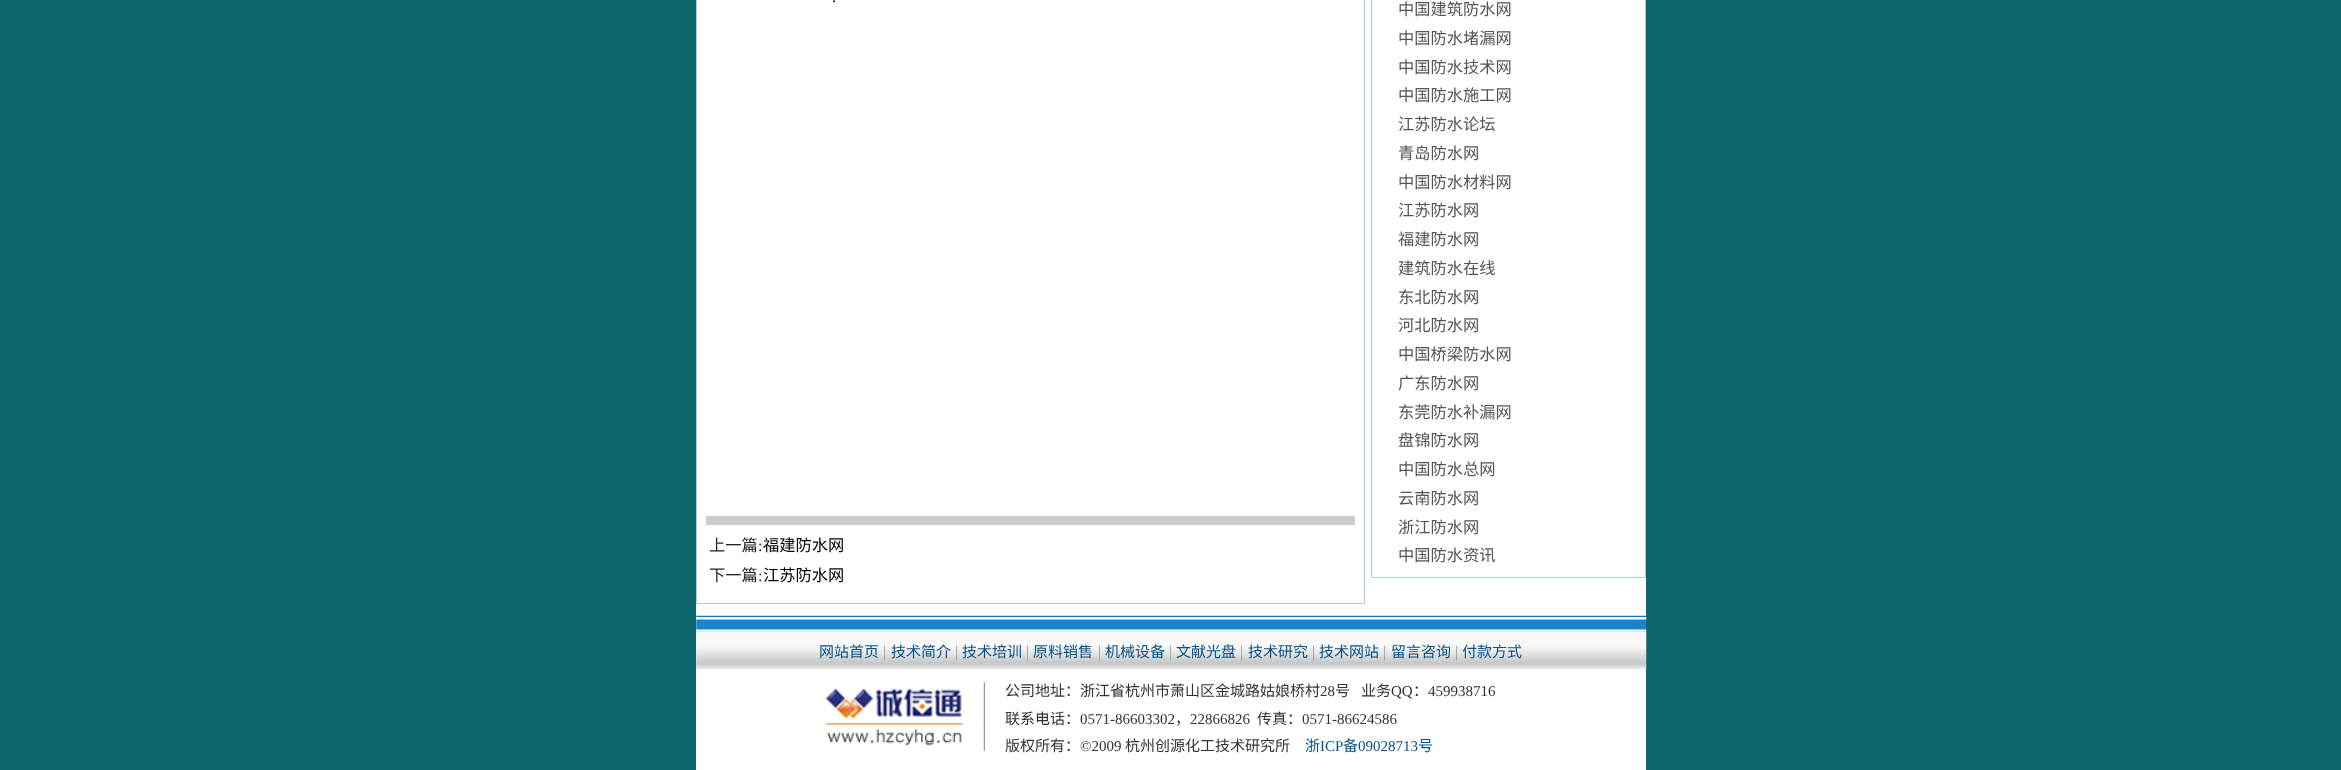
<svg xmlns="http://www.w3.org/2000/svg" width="2341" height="770">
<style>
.a{font:16.25px Liberation Serif;fill:#000}
.b{font:16.25px Noto Sans CJK SC;fill:#232323}
.c{font:16.25px Liberation Serif;fill:#232323}
.d{font:16.25px Noto Sans CJK SC;fill:#000}
.e{font:16.25px Noto Sans CJK SC;fill:#555}
.f{font:15px Noto Sans CJK SC;fill:#055387}
.g{font:16.25px Liberation Serif;fill:#999}
.h{font:15px Noto Sans CJK SC;fill:#333}
.i{font:15px Liberation Serif;fill:#333}
.j{font:15px Liberation Serif;fill:#055387}
</style>
<rect width="100%" height="100%" fill="#0e656c"/>
<path fill="#fff" d="M696 0h950v770H696z"/>
<path fill="none" stroke="#a9cee1" d="M696.5 -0.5h668v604H696.5z"/>
<path fill="#ccc" d="M706 516h649v9H706z"/>
<path fill="none" stroke="#a9cee1" d="M1371.5 -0.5h274v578H1371.5z"/>
<image href="1.png" x="696" y="615" width="951" height="17"/>
<image href="2.png" x="696" y="632" width="951" height="38"/>
<image href="3.png" x="823" y="681" width="162" height="70"/>
<text class="a" x="832" y="2">.</text>
<text class="b" x="709" y="551">上一篇</text>
<text class="c" x="758" y="551">:</text>
<text class="d" x="763" y="551">福建防水网</text>
<text class="b" x="709" y="581">下一篇</text>
<text class="c" x="758" y="581">:</text>
<text class="d" x="763" y="581">江苏防水网</text>
<text class="e" x="1398" y="15">中国建筑防水网</text>
<text class="e" x="1398" y="44">中国防水堵漏网</text>
<text class="e" x="1398" y="73">中国防水技术网</text>
<text class="e" x="1398" y="101">中国防水施工网</text>
<text class="e" x="1398" y="130">江苏防水论坛</text>
<text class="e" x="1398" y="159">青岛防水网</text>
<text class="e" x="1398" y="188">中国防水材料网</text>
<text class="e" x="1398" y="216">江苏防水网</text>
<text class="e" x="1398" y="245">福建防水网</text>
<text class="e" x="1398" y="274">建筑防水在线</text>
<text class="e" x="1398" y="303">东北防水网</text>
<text class="e" x="1398" y="331">河北防水网</text>
<text class="e" x="1398" y="360">中国桥梁防水网</text>
<text class="e" x="1398" y="389">广东防水网</text>
<text class="e" x="1398" y="418">东莞防水补漏网</text>
<text class="e" x="1398" y="446">盘锦防水网</text>
<text class="e" x="1398" y="475">中国防水总网</text>
<text class="e" x="1398" y="504">云南防水网</text>
<text class="e" x="1398" y="533">浙江防水网</text>
<text class="e" x="1398" y="561">中国防水资讯</text>
<text class="f" x="819" y="657">网站首页</text>
<text class="g" x="883" y="657">|</text>
<text class="f" x="891" y="657">技术简介</text>
<text class="g" x="955" y="657">|</text>
<text class="f" x="962" y="657">技术培训</text>
<text class="g" x="1026" y="657">|</text>
<text class="f" x="1033" y="657">原料销售</text>
<text class="g" x="1098" y="657">|</text>
<text class="f" x="1105" y="657">机械设备</text>
<text class="g" x="1169" y="657">|</text>
<text class="f" x="1176" y="657">文献光盘</text>
<text class="g" x="1240" y="657">|</text>
<text class="f" x="1248" y="657">技术研究</text>
<text class="g" x="1312" y="657">|</text>
<text class="f" x="1319" y="657">技术网站</text>
<text class="g" x="1383" y="657">|</text>
<text class="f" x="1391" y="657">留言咨询</text>
<text class="g" x="1455" y="657">|</text>
<text class="f" x="1462" y="657">付款方式</text>
<text class="h" x="1005" y="696">公司地址：浙江省杭州市萧山区金城路姑娘桥村</text>
<text class="i" x="1320" y="696">28</text>
<text class="h" x="1335" y="696">号</text>
<text class="h" x="1361" y="696">业务</text>
<text class="i" x="1391" y="696">QQ</text>
<text class="h" x="1413" y="696">：</text>
<text class="i" x="1428" y="696">459938716</text>
<text class="h" x="1005" y="724">联系电话：</text>
<text class="i" x="1080" y="724">0571-86603302</text>
<text class="h" x="1175" y="724">，</text>
<text class="i" x="1190" y="724">22866826</text>
<text class="h" x="1257" y="724">传真：</text>
<text class="i" x="1302" y="724">0571-86624586</text>
<text class="h" x="1005" y="751">版权所有：</text>
<text class="i" x="1080" y="751">©2009</text>
<text class="h" x="1125" y="751">杭州创源化工技术研究所</text>
<text class="f" x="1305" y="751">浙</text>
<text class="j" x="1320" y="751">ICP</text>
<text class="f" x="1343" y="751">备</text>
<text class="j" x="1358" y="751">09028713</text>
<text class="f" x="1418" y="751">号</text>
</svg>
